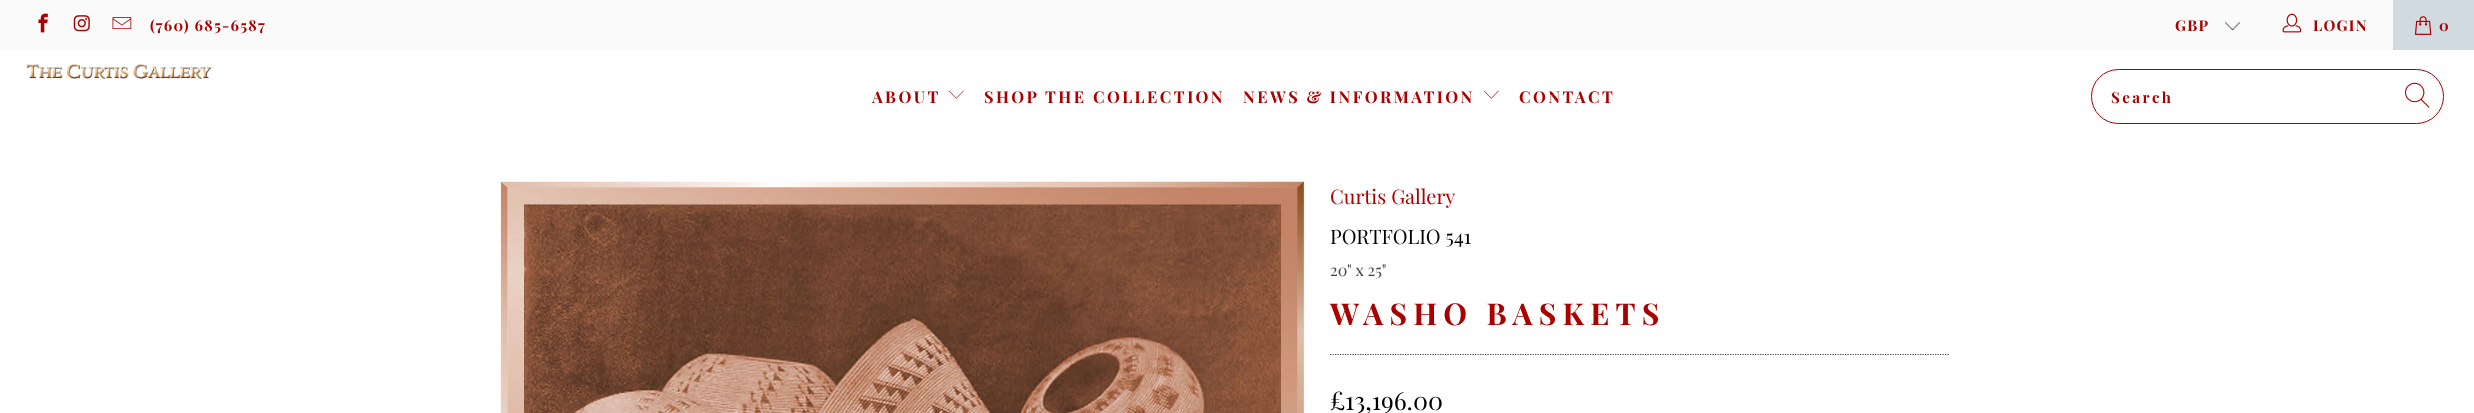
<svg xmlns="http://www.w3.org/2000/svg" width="2474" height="413">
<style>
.a{font:bold 15px Playfair Display;letter-spacing:1.25px;fill:#a00}
.b{font:bold 16.25px Playfair Display;letter-spacing:2.5px;fill:#a00}
.c{font:bold 15px Playfair Display;letter-spacing:2.5px;fill:#a00}
.d{font:20px Playfair Display;fill:#a00}
.e{font:20px Playfair Display;fill:#000}
.f{font:16px Playfair Display;fill:#444}
.g{font:bold 30px Playfair Display;letter-spacing:6.25px;fill:#a00}
.h{font:25px Playfair Display;fill:#000}
</style>
<rect width="100%" height="100%" fill="#fff"/>
<path fill="#fafafa" d="M0 0h2393v50H0z"/>
<image href="1.png" x="38" y="13" width="10" height="20"/>
<image href="2.png" x="73" y="15" width="17" height="17"/>
<image href="3.png" x="112" y="17" width="20" height="12"/>
<image href="4.png" x="2225" y="21" width="15" height="10"/>
<image href="5.png" x="2282" y="13" width="20" height="20"/>
<path fill="#d1d9e1" d="M2393 0h81v50H2393z"/>
<image href="6.png" x="2414" y="16" width="18" height="19"/>
<image href="7.png" x="25" y="63" width="187" height="17"/>
<image href="8.png" x="948" y="90" width="16" height="9"/>
<image href="8.png" x="1483" y="90" width="16" height="9"/>
<rect fill="none" stroke="#a00" x="2091.5" y="69.5" width="352" height="54" rx="27"/>
<image href="9.png" x="2404" y="82" width="26" height="26"/>
<image href="10.png" x="500" y="181" width="805" height="232"/>
<path fill="none" stroke="#444" stroke-width="1.2" stroke-dasharray="1.25 1.25" d="M1330 354.5h620"/>
<text class="a" x="150" y="31">(760) 685-6587</text>
<text class="a" x="2175" y="31">GBP</text>
<text class="a" x="2313" y="31">LOGIN</text>
<text class="a" x="2439" y="31">0</text>
<text class="b" x="872" y="103">ABOUT</text>
<text class="b" x="984" y="103">SHOP THE COLLECTION</text>
<text class="b" x="1243" y="103">NEWS &amp; INFORMATION</text>
<text class="b" x="1519" y="103">CONTACT</text>
<text class="c" x="2111" y="103">Search</text>
<text class="d" x="1330" y="204">Curtis Gallery</text>
<text class="e" x="1330" y="244">PORTFOLIO 541</text>
<text class="f" x="1330" y="276">20" x 25"</text>
<text class="g" x="1330" y="325">WASHO BASKETS</text>
<text class="h" x="1330" y="410">£13,196.00</text>
</svg>
